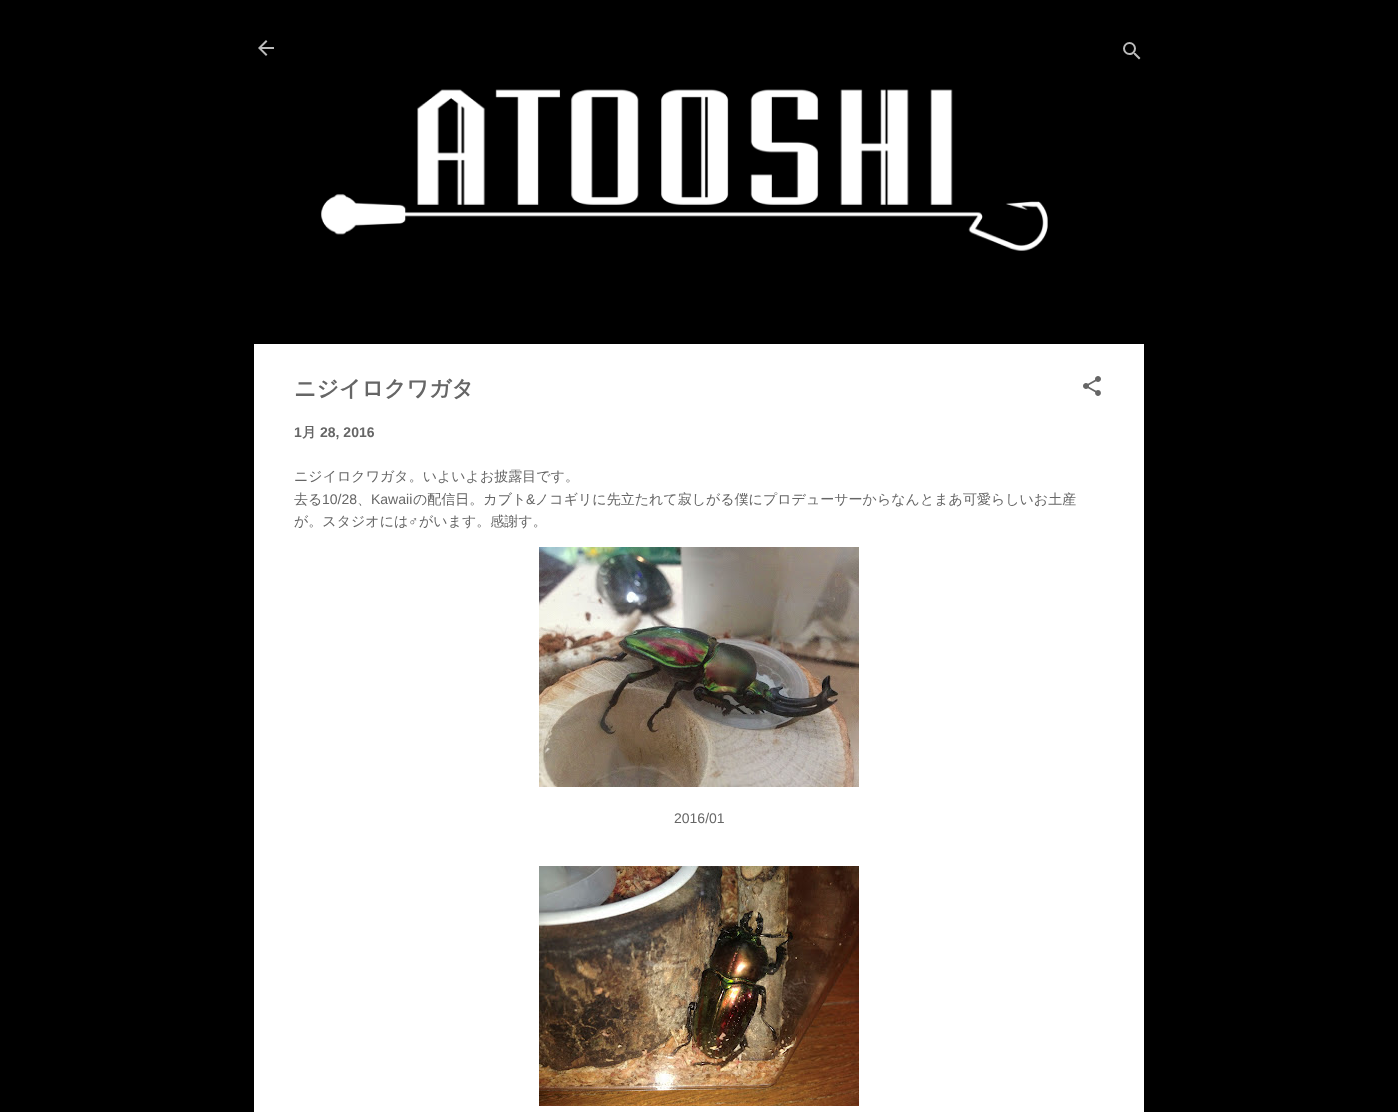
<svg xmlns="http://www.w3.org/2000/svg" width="1398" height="1112">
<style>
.a{font:bold 22px WenQuanYi Zen Hei;fill:#666}
.b{font:bold 14px Liberation Sans;fill:#666}
.c{font:bold 14px WenQuanYi Zen Hei;fill:#666}
.d{font:500 14px WenQuanYi Zen Hei;fill:#666}
.e{font:14px Liberation Sans;fill:#666}
</style>
<rect width="100%" height="100%" fill="#000"/>
<image href="1.png" x="258" y="40" width="16" height="16"/>
<image href="2.png" x="1123" y="42" width="18" height="18"/>
<image href="3.png" x="321" y="89" width="727" height="162"/>
<path fill="#fff" d="M254 344h890v768H254z"/>
<image href="4.png" x="1083" y="376" width="18" height="20"/>
<image href="5.png" x="539" y="547" width="320" height="240"/>
<image href="6.png" x="539" y="866" width="320" height="240"/>
<text class="a" x="294" y="396">ニジイロクワガタ</text>
<text class="b" x="294" y="437">1</text>
<text class="c" x="302" y="437">月</text>
<text class="b" x="320" y="437">28, 2016</text>
<text class="d" x="294" y="481">ニジイロクワガタ。いよいよお披露目です。</text>
<text class="d" x="294" y="504">去る</text>
<text class="e" x="322" y="504">10/28</text>
<text class="d" x="357" y="504">、</text>
<text class="e" x="371" y="504">Kawaii</text>
<text class="d" x="413" y="504">の配信日。カブト</text>
<text class="e" x="526" y="504">&amp;</text>
<text class="d" x="535" y="504">ノコギリに先立たれて寂しがる僕にプロデューサーからなんとまあ可愛らしいお土産</text>
<text class="d" x="294" y="526">が。スタジオには</text>
<text class="e" x="408" y="526">♂</text>
<text class="d" x="419" y="526">がいます。感謝す。</text>
<text class="e" x="674" y="823">2016/01</text>
</svg>
